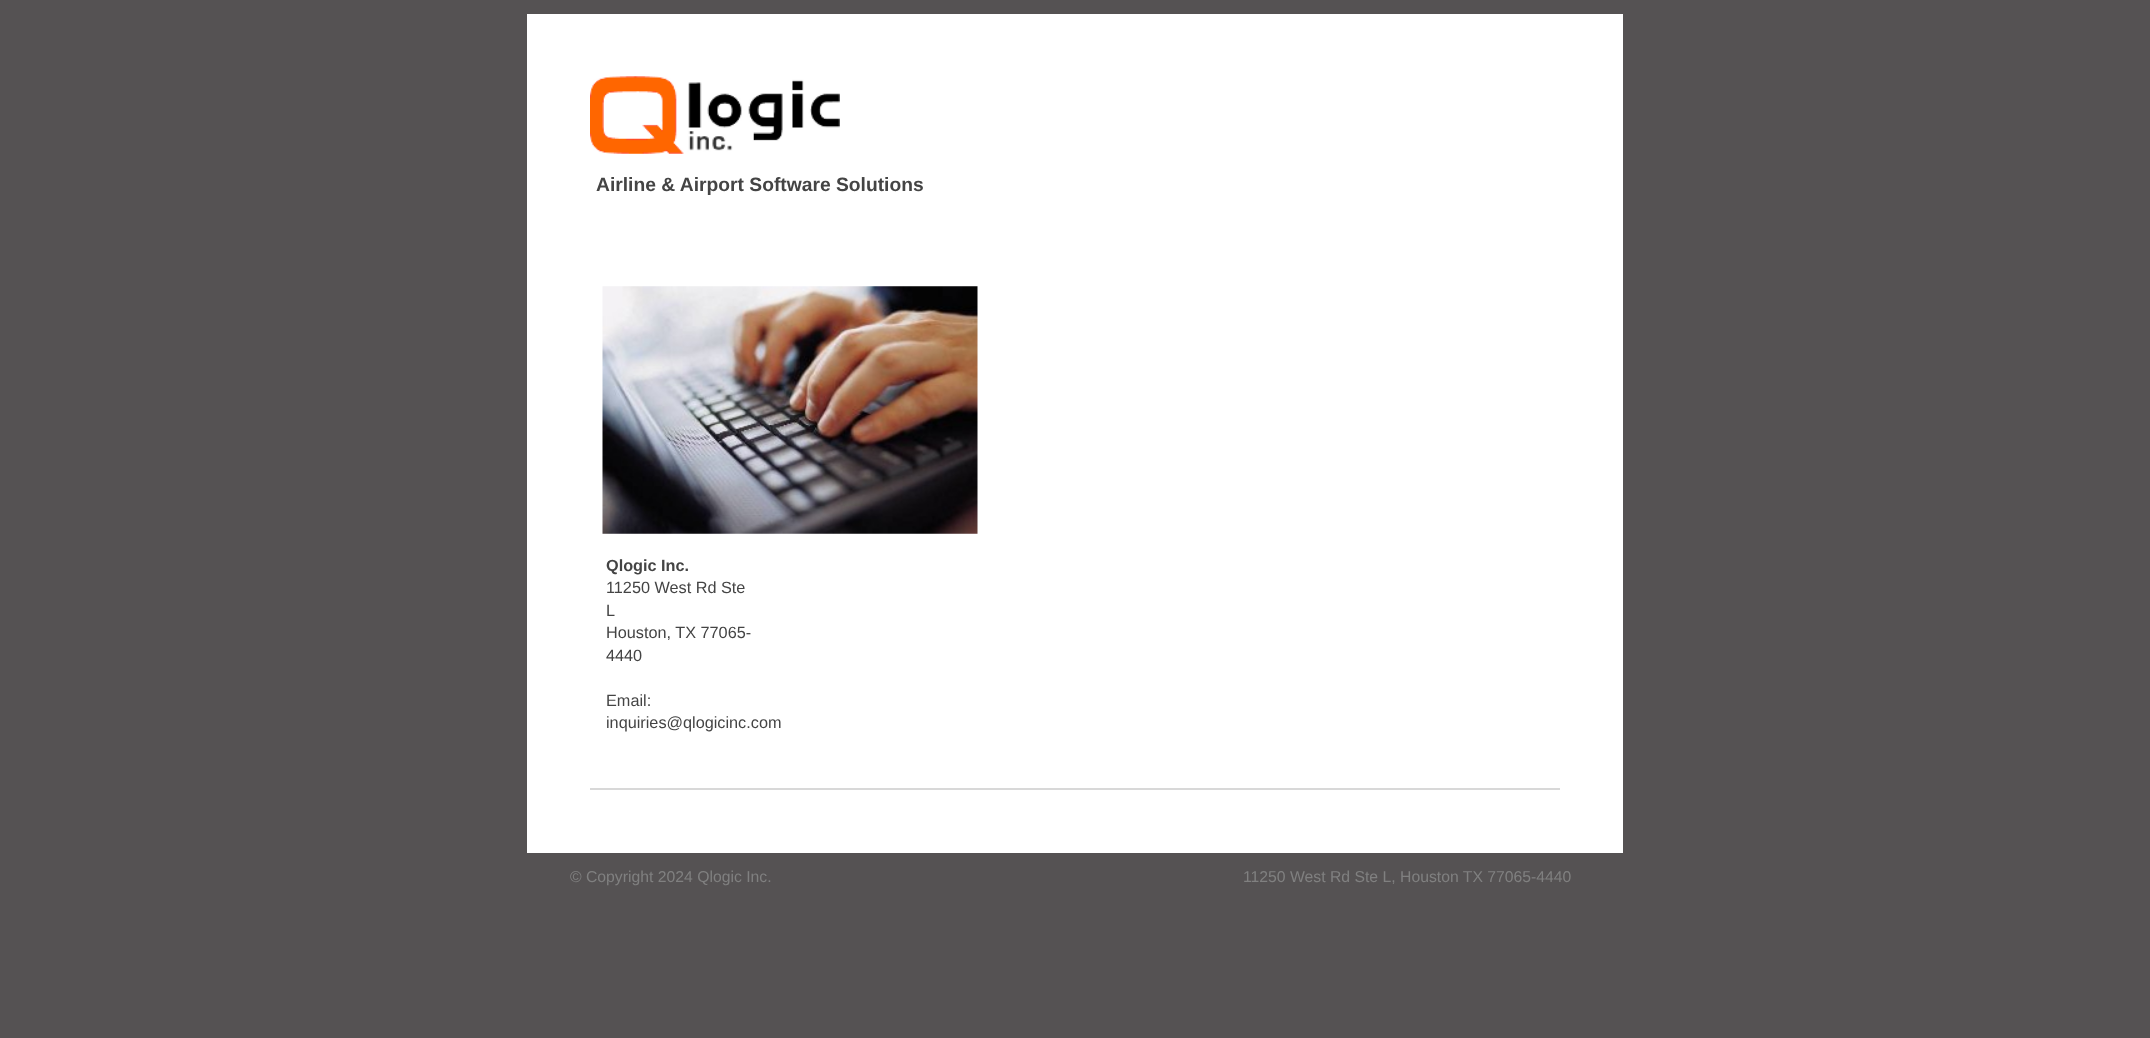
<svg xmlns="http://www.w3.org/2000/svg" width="2150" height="1038">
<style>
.a{font:bold 19.25px Liberation Sans;fill:#444}
.b{font:bold 16.25px Liberation Sans;fill:#444}
.c{font:16.25px Liberation Sans;fill:#444}
.d{font:15.75px Liberation Sans;fill:#808080}
</style>
<rect width="100%" height="100%" fill="#555253"/>
<path fill="#fff" d="M527 14h1096v839H527z"/>
<image href="1.png" x="590" y="76" width="250" height="78"/>
<image href="2.png" x="602" y="286" width="376" height="248"/>
<path fill="#d8d8d8" d="M590 788h970v2H590z"/>
<text class="a" x="596" y="191">Airline &amp; Airport Software Solutions</text>
<text class="b" x="606" y="571">Qlogic Inc.</text>
<text class="c" x="606" y="593">11250 West Rd Ste</text>
<text class="c" x="606" y="616">L</text>
<text class="c" x="606" y="638">Houston, TX 77065-</text>
<text class="c" x="606" y="661">4440</text>
<text class="c" x="606" y="706">Email:</text>
<text class="c" x="606" y="728">inquiries@qlogicinc.com</text>
<text class="d" x="570" y="882">© Copyright 2024 Qlogic Inc.</text>
<text class="d" x="1243" y="882">11250 West Rd Ste L, Houston TX 77065-4440</text>
</svg>
